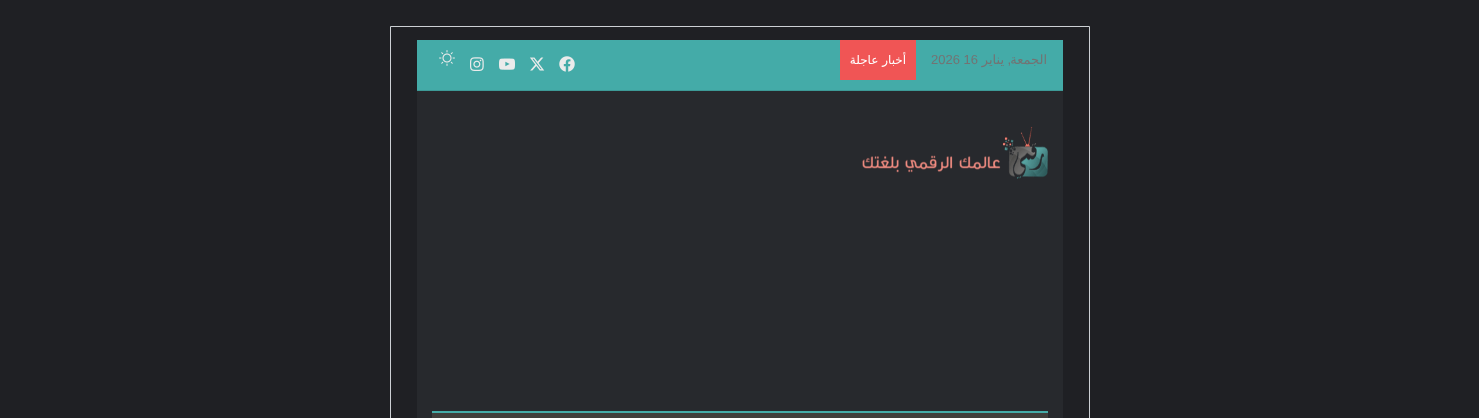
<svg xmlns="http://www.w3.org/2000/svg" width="1479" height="418">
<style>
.a{font:13px DejaVu Sans;direction:rtl;fill:#737373}
.b{font:13px Liberation Sans;direction:rtl;fill:#737373}
.c{font:13px Liberation Sans;fill:#737373}
.d{font:12px DejaVu Sans;direction:rtl;fill:#fff}
</style>
<rect width="100%" height="100%" fill="#1f2024"/>
<path fill="none" stroke="#ccd0d4" d="M390.5 26.5h699v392H390.5z"/>
<path fill="#27292d" d="M417 91h646v327H417z"/>
<path fill="#44aba8" d="M417 40h646v50H417z"/>
<path fill="#3d9a97" d="M417 90h646v1H417z"/>
<path fill="#f05555" d="M840 40h76v40H840z"/>
<image href="1.png" x="559" y="56" width="16" height="16"/>
<image href="2.png" x="530" y="57" width="15" height="14"/>
<image href="3.png" x="499" y="58" width="16" height="12"/>
<image href="4.png" x="470" y="57" width="14" height="14"/>
<image href="5.png" x="439" y="50" width="16" height="16"/>
<image href="6.png" x="862" y="126" width="186" height="53"/>
<path fill="#403e3b" d="M432 413h616v5H432z"/>
<path fill="#44aba8" d="M432 411h616v2H432z"/>
<text class="a" x="1047" y="64">الجمعة</text>
<text class="b" x="1011" y="64">,</text>
<text class="a" x="1004" y="64">يناير</text>
<text class="c" x="931" y="64">2026 16</text>
<text class="d" x="906" y="64">أخبار عاجلة</text>
</svg>
